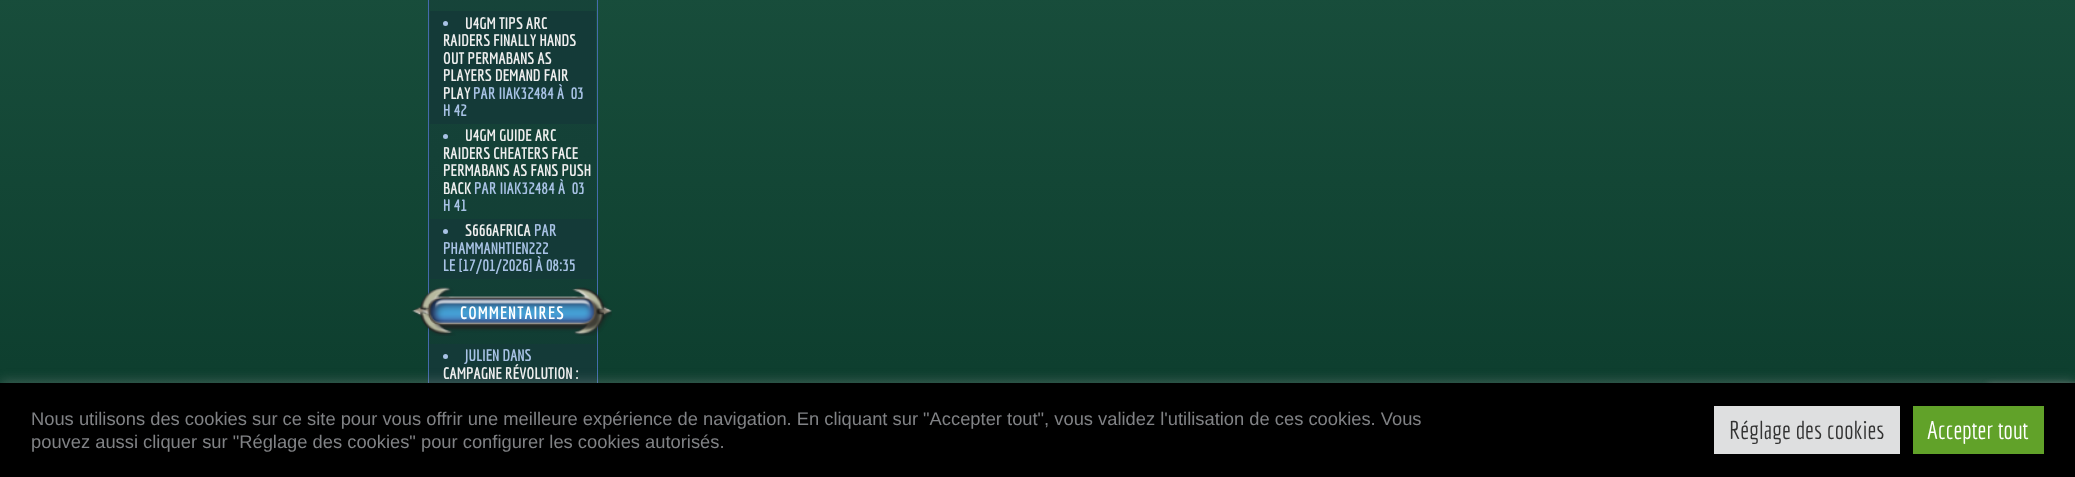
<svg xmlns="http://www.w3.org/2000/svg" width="2075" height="477">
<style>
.a{font:bold 16.25px Economica;fill:#eee}
.b{font:bold 16.25px Economica;fill:#a8c2e5}
.c{font:bold 17.5px Economica;letter-spacing:1.25px;fill:#fff}
.d{font:18.33px Liberation Sans;fill:#808285}
.e{font:25px Economica;fill:#333}
.f{font:25px Economica;fill:#fff}
</style>
<defs>
<linearGradient id="g1" gradientUnits="userSpaceOnUse" x1="1037" y1="-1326" x2="1038" y2="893"><stop offset="0" stop-color="#3b7f66"/><stop offset="1" stop-color="#002b1e"/></linearGradient>
<linearGradient id="g2" gradientUnits="userSpaceOnUse" x1="1037" y1="-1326" x2="1038" y2="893"><stop offset="0" stop-color="#285d4f"/><stop offset="1" stop-color="#0a332b"/></linearGradient>
</defs>
<rect width="100%" height="100%" fill="#fff"/>
<path fill="url(#g1)" d="M0 0h2075v383H0z"/>
<path fill="url(#g2)" d="M429 0h167v383H429z"/>
<path fill="none" stroke="#456aad" d="M428.5 -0.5h169v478H428.5z"/>
<path fill="#143a38" d="M430 11h166v113H430z"/>
<circle fill="#a8c2e5" cx="445.5" cy="23.5" r="2.5"/>
<circle fill="#a8c2e5" cx="445.5" cy="136.5" r="2.5"/>
<path fill="#143a38" d="M430 219h166v60H430z"/>
<circle fill="#a8c2e5" cx="445.5" cy="231.5" r="2.5"/>
<image href="1.png" x="412" y="287" width="200" height="49"/>
<path fill="#143a38" d="M430 344h166v39H430z"/>
<circle fill="#a8c2e5" cx="445.5" cy="356.5" r="2.5"/>
<path fill="#acabab4d" filter="blur(6px)" d="M0 381h2075v95H0z"/>
<rect fill="#808080" filter="blur(3px)" x="1988" y="385" width="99" height="75" rx="2.5"/>
<path fill="#000" d="M0 383h2075v94H0z"/>
<path fill="#dedfe0" d="M1714 406h186v48H1714z"/>
<path fill="#61a229" d="M1913 406h131v48H1913z"/>
<text class="a" x="465" y="29">U4GM TIPS ARC</text>
<text class="a" x="443" y="46">RAIDERS FINALLY HANDS</text>
<text class="a" x="443" y="64">OUT PERMABANS AS</text>
<text class="a" x="443" y="81">PLAYERS DEMAND FAIR</text>
<text class="a" x="443" y="99">PLAY</text>
<text class="b" xml:space="preserve" x="473" y="99">PAR IIAK32484 À  03</text>
<text class="b" x="443" y="116">H 42</text>
<text class="a" x="465" y="141">U4GM GUIDE ARC</text>
<text class="a" x="443" y="159">RAIDERS CHEATERS FACE</text>
<text class="a" x="443" y="176">PERMABANS AS FANS PUSH</text>
<text class="a" x="443" y="194">BACK</text>
<text class="b" xml:space="preserve" x="474" y="194">PAR IIAK32484 À  03</text>
<text class="b" x="443" y="211">H 41</text>
<text class="a" x="465" y="236">S666AFRICA</text>
<text class="b" x="534" y="236">PAR</text>
<text class="b" x="443" y="254">PHAMMANHTIEN222</text>
<text class="b" x="443" y="271">LE [17/01/2026] À 08:35</text>
<text class="c" x="460" y="319">COMMENTAIRES</text>
<text class="b" x="465" y="361">JULIEN DANS</text>
<text class="a" x="443" y="379">CAMPAGNE RÉVOLUTION :</text>
<text class="d" x="31" y="425">Nous utilisons des cookies sur ce site pour vous offrir une meilleure expérience de navigation. En cliquant sur "Accepter tout", vous validez l'utilisation de ces cookies. Vous</text>
<text class="d" x="31" y="448">pouvez aussi cliquer sur "Réglage des cookies" pour configurer les cookies autorisés.</text>
<text class="e" x="1729" y="439">Réglage des cookies</text>
<text class="f" x="1927" y="439">Accepter tout</text>
</svg>
